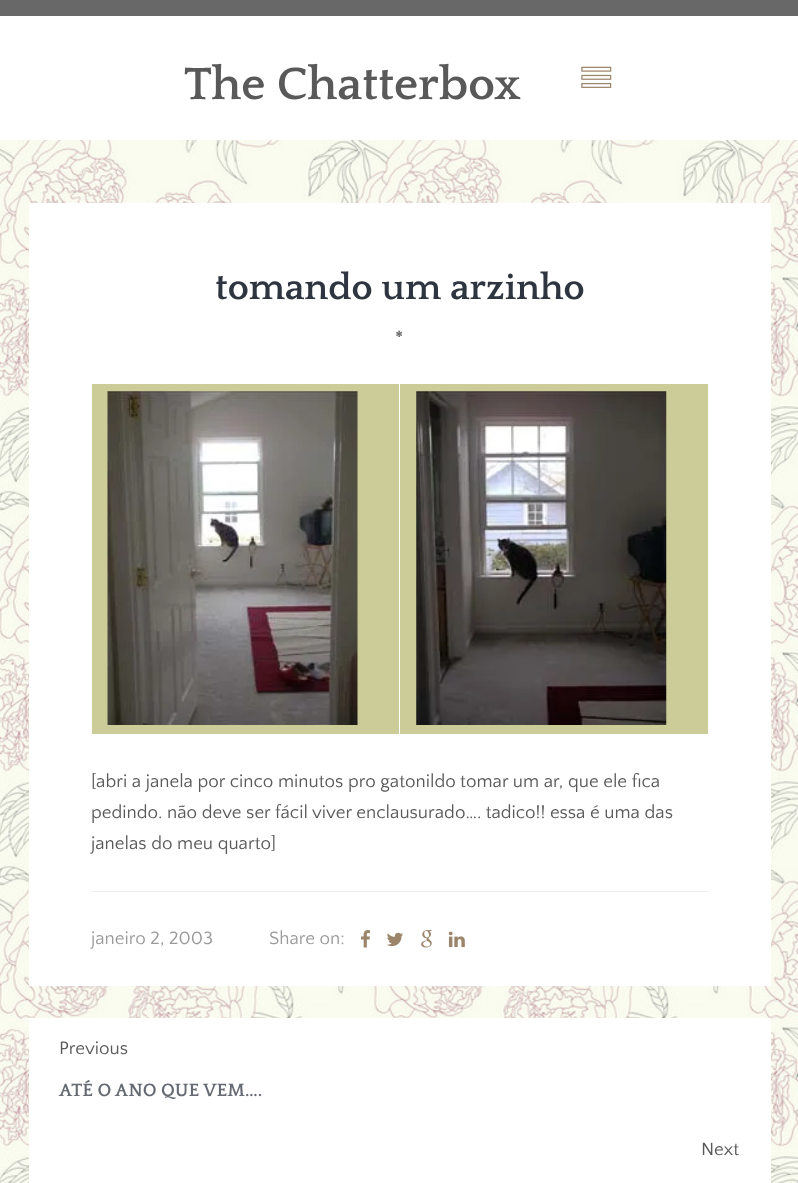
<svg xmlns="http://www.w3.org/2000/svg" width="798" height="1183">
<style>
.a{font:bold 47.5px Quattrocento;fill:#595959}
.b{font:bold 37.5px Quattrocento;fill:#2f3540}
.c{font:bold 18.75px Quattrocento Sans;fill:#6b6b6b}
.d{font:18.75px Quattrocento Sans;fill:#595959}
.e{font:18.75px Quattrocento Sans;fill:#9a9a9a}
.f{font:bold 18.75px Quattrocento;fill:#666a73}
</style>
<rect width="100%" height="100%" fill="#fff"/>
<image href="1.png" x="0" y="140" width="798" height="1043"/>
<path fill="#686868" d="M0 0h798v16H0z"/>
<image href="2.png" x="581" y="66" width="31" height="22"/>
<path fill="#fff" d="M29 203h742v783H29z"/>
<path fill="#cc9" d="M92 384h616v350H92z"/>
<image href="3.png" x="107" y="391" width="251" height="334"/>
<path fill="#fff" d="M399 383h1v352H399z"/>
<image href="4.png" x="416" y="391" width="251" height="334"/>
<path fill="#eeefef" d="M91 891h618v1H91z"/>
<image href="5.png" x="361" y="930" width="10" height="18"/>
<image href="6.png" x="387" y="932" width="16" height="15"/>
<image href="7.png" x="421" y="930" width="11" height="18"/>
<image href="8.png" x="448" y="931" width="17" height="16"/>
<path fill="#fff" d="M29 1018h742v165H29z"/>
<text class="a" x="184" y="99">The Chatterbox</text>
<text class="b" x="215" y="299">tomando um arzinho</text>
<text class="c" x="395" y="344">*</text>
<text class="d" x="91" y="787">[abri a janela por cinco minutos pro gatonildo tomar um ar, que ele fica</text>
<text class="d" x="91" y="818">pedindo. não deve ser fácil viver enclausurado…. tadico!! essa é uma das</text>
<text class="d" x="91" y="849">janelas do meu quarto]</text>
<text class="e" x="91" y="944">janeiro 2, 2003</text>
<text class="e" x="269" y="944">Share on:</text>
<text class="d" x="59" y="1054">Previous</text>
<text class="f" x="59" y="1096">ATÉ O ANO QUE VEM….</text>
<text class="d" x="701" y="1155">Next</text>
</svg>
